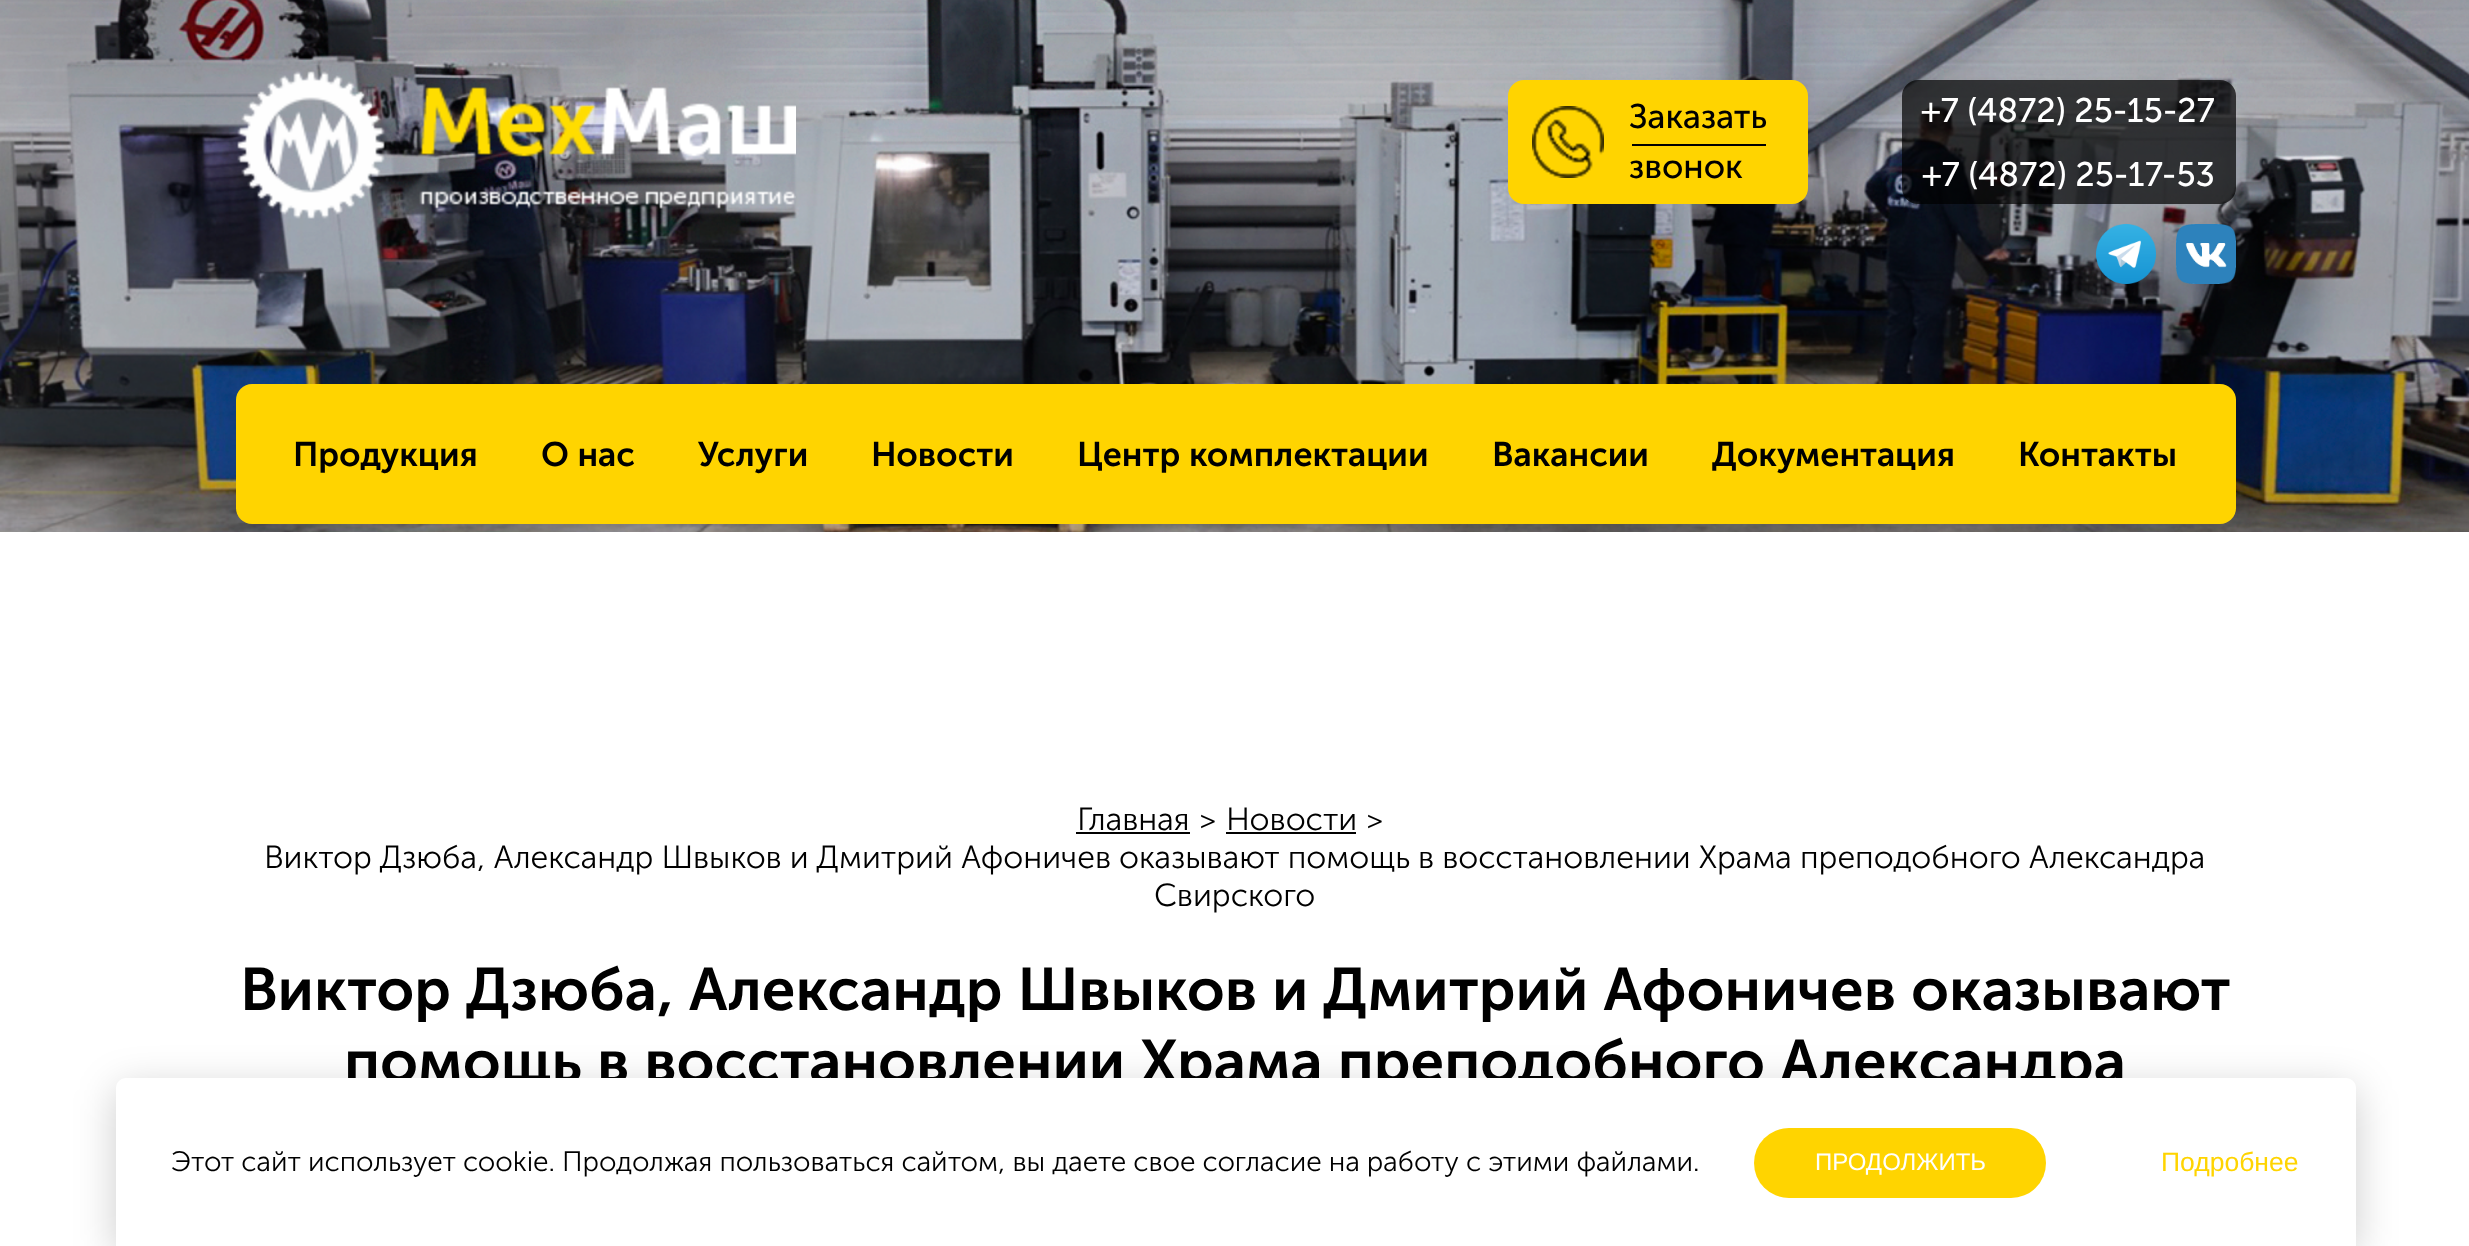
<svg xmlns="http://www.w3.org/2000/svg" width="2469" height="1246">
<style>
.a{font:34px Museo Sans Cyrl;fill:#000}
.b{font:34px Museo Sans Cyrl;fill:#fff}
.c{font:600 34px Museo Sans Cyrl;fill:#000}
.d{font:300 32px Museo Sans Cyrl;fill:#000}
.e{font:300 30px Museo Sans Cyrl;fill:#000}
.f{font:600 60px Museo Sans Cyrl;fill:#000}
.g{font:300 28px Museo Sans Cyrl;fill:#000}
.h{font:24px Liberation Sans;fill:#fff}
.i{font:26.5px Liberation Sans;fill:#ffd400}
</style>
<rect width="100%" height="100%" fill="#fff"/>
<image href="1.png" x="0" y="0" width="2469" height="532"/>
<image href="2.png" x="237" y="71" width="559" height="148"/>
<rect fill="#ffd400" stroke="#ffd400" stroke-width="2" x="1509" y="81" width="298" height="122" rx="15"/>
<image href="3.png" x="1532" y="106" width="72" height="72"/>
<path fill="#000" d="M1632 144h134v2H1632z"/>
<rect fill="#000000b3" x="1902" y="80" width="334" height="124" rx="16"/>
<image href="4.png" x="2096" y="224" width="60" height="60"/>
<image href="5.png" x="2176" y="224" width="60" height="60"/>
<rect fill="#ffd400" x="236" y="384" width="2000" height="140" rx="16"/>
<path fill="#000" d="M1076 832h114v2H1076z"/>
<path fill="#000" d="M1226 832h130v2H1226z"/>
<rect fill="#00000033" filter="blur(20px)" x="116" y="1088" width="2240" height="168" rx="10"/>
<text class="a" x="1629" y="128">Заказать</text>
<text class="a" x="1629" y="178">звонок</text>
<text class="b" x="1921" y="122">+7 (4872) 25-15-27</text>
<text class="b" x="1922" y="186">+7 (4872) 25-17-53</text>
<text class="c" x="293" y="466">Продукция</text>
<text class="c" x="541" y="466">О нас</text>
<text class="c" x="698" y="466">Услуги</text>
<text class="c" x="871" y="466">Новости</text>
<text class="c" x="1077" y="466">Центр комплектации</text>
<text class="c" x="1492" y="466">Вакансии</text>
<text class="c" x="1712" y="466">Документация</text>
<text class="c" x="2018" y="466">Контакты</text>
<text class="d" x="1077" y="830">Главная</text>
<text class="e" x="1199" y="830">&gt;</text>
<text class="d" x="1226" y="830">Новости</text>
<text class="e" x="1366" y="830">&gt;</text>
<text class="d" x="264" y="868">Виктор Дзюба, Александр Швыков и Дмитрий Афоничев оказывают помощь в восстановлении Храма преподобного Александра</text>
<text class="d" x="1154" y="906">Свирского</text>
<text class="f" x="240" y="1010">Виктор Дзюба, Александр Швыков и Дмитрий Афоничев оказывают</text>
<text class="f" x="344" y="1082">помощь в восстановлении Храма преподобного Александра</text>
<path fill="#fff" d="M126 1078h2220c5.5 0 10 4.5 10 10v158h-2240v-158c0-5.5 4.5-10 10-10z"/>
<text class="g" x="171" y="1171">Этот сайт использует cookie. Продолжая пользоваться сайтом, вы даете свое согласие на работу с этими файлами.</text>
<rect fill="#ffd400" x="1754" y="1128" width="292" height="70" rx="35"/>
<text class="h" x="1815" y="1170">ПРОДОЛЖИТЬ</text>
<text class="i" x="2161" y="1171">Подробнее</text>
</svg>
